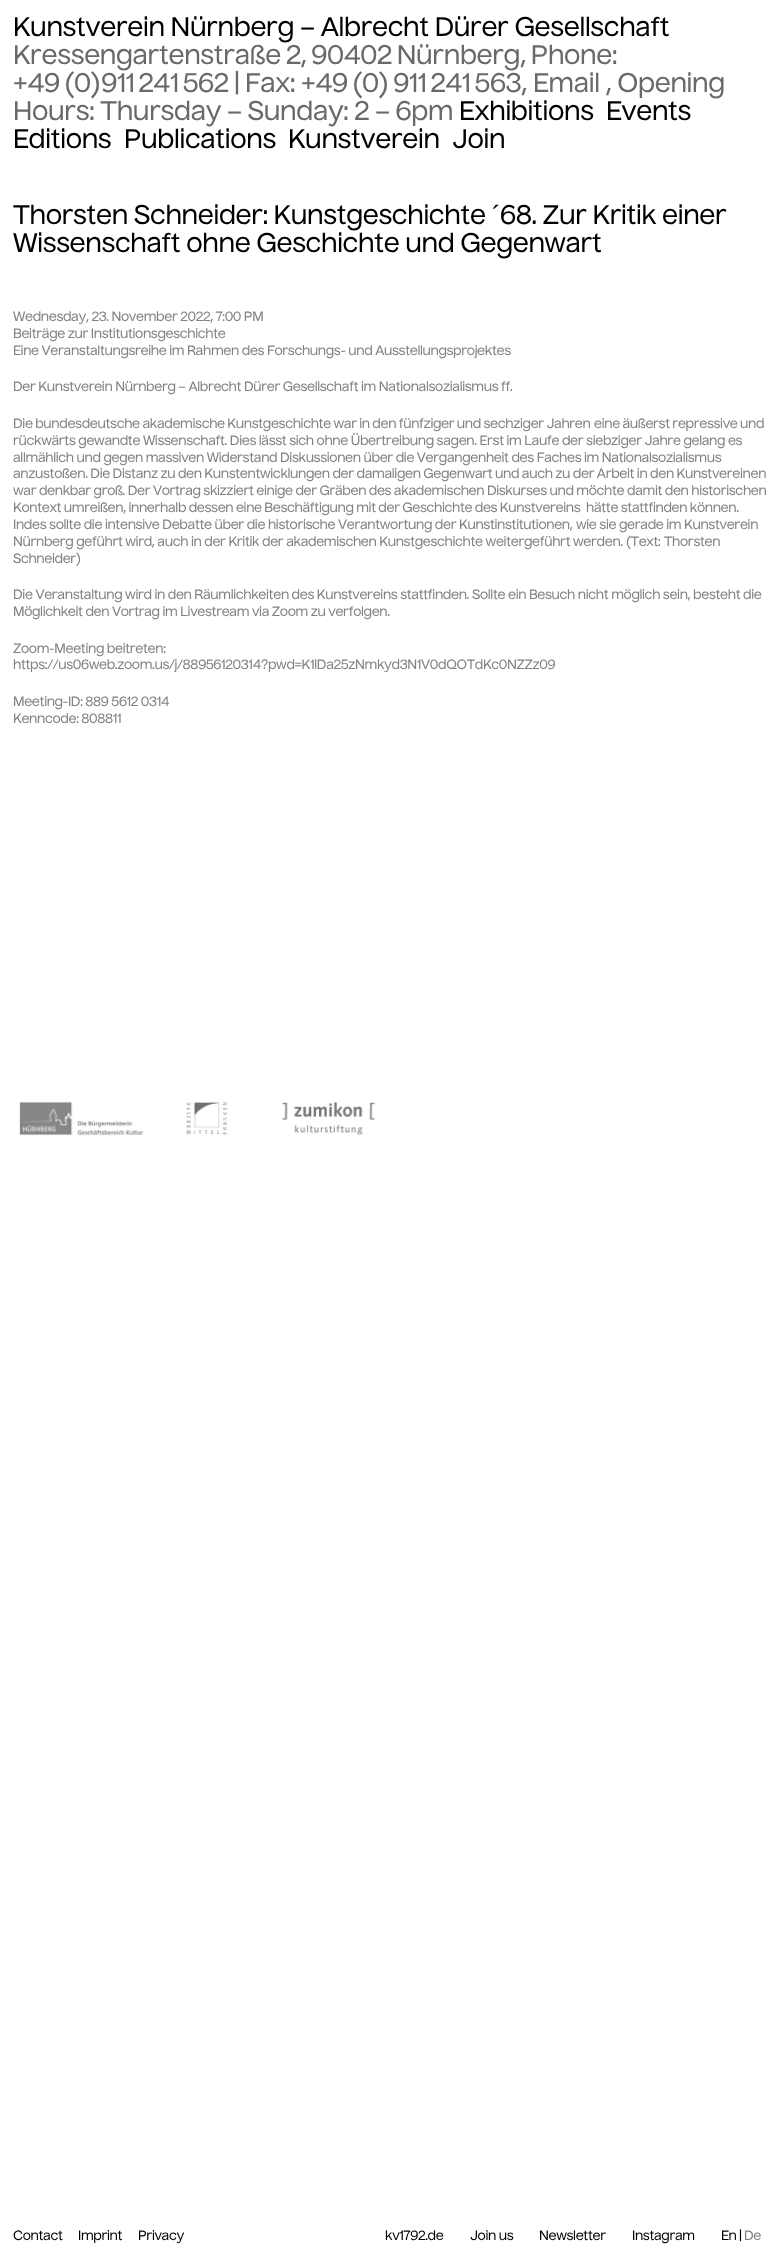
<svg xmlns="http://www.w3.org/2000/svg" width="774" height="2258">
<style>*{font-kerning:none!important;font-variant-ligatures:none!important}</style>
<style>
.a{font:26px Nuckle;letter-spacing:-0.33px;fill:#000}
.b{font:26px Nuckle;letter-spacing:-0.33px;fill:#696969}
.c{font:26px Liberation Sans;letter-spacing:-0.33px;fill:#000}
.d{font:13px Nuckle;letter-spacing:-0.33px;fill:#828282}
.e{font:13px Nuckle;letter-spacing:-0.33px;fill:#000}
</style>
<rect width="100%" height="100%" fill="#fff"/>
<image href="1.png" x="19" y="1101" width="357" height="35"/>
<text class="a" x="13" y="36">Kunstverein Nürnberg – Albrecht Dürer Gesellschaft</text>
<text class="b" x="13" y="64" word-spacing="-1">Kressengartenstraße 2, 90402 Nürnberg, Phone:</text>
<text class="b" x="13" y="92">+49 (0)911 241 562 | Fax: +49 (0) 911 241 563, Email , Opening</text>
<text class="b" x="13" y="120">Hours: Thursday – Sunday: 2 – 6pm</text>
<text class="a" x="459" y="120">Exhibitions</text>
<text class="a" x="606" y="120">Events</text>
<text class="a" x="13" y="148">Editions</text>
<text class="a" x="124" y="148">Publications</text>
<text class="a" x="288" y="148">Kunstverein</text>
<text class="a" x="452" y="148">Join</text>
<text class="a" x="13" y="224">Thorsten Schneider: Kunstgeschichte</text>
<text class="c" x="492" y="224">´</text>
<text class="a" x="500" y="224">68. Zur Kritik einer</text>
<text class="a" x="13" y="252">Wissenschaft ohne Geschichte und Gegenwart</text>
<text class="d" x="13" y="321">Wednesday, 23. November 2022, 7:00 PM</text>
<text class="d" x="13" y="338">Beiträge zur Institutionsgeschichte</text>
<text class="d" x="13" y="355">Eine Veranstaltungsreihe im Rahmen des Forschungs- und Ausstellungsprojektes</text>
<text class="d" x="13" y="391">Der Kunstverein Nürnberg – Albrecht Dürer Gesellschaft im Nationalsozialismus</text>
<text class="d" x="501" y="391">ff.</text>
<text class="d" x="13" y="428" word-spacing="-0.2">Die bundesdeutsche akademische Kunstgeschichte war in den fünfziger und sechziger Jahren</text>
<text class="d" x="594" y="428" word-spacing="-0.2">eine äußerst repressive und</text>
<text class="d" x="13" y="445">rückwärts gewandte Wissenschaft. Dies lässt sich ohne Übertreibung sagen. Erst im Laufe der siebziger Jahre gelang es</text>
<text class="d" x="13" y="462">allmählich und gegen massiven Widerstand Diskussionen über die Vergangenheit des Faches im Nationalsozialismus</text>
<text class="d" x="13" y="478" word-spacing="-0.1">anzustoßen. Die Distanz zu den Kunstentwicklungen der damaligen Gegenwart und auch zu der Arbeit in den Kunstvereinen</text>
<text class="d" x="13" y="495" word-spacing="-0.1">war denkbar groß. Der Vortrag skizziert einige der Gräben des akademischen Diskurses und möchte damit den historischen</text>
<text class="d" x="13" y="512" word-spacing="-0.2">Kontext umreißen, innerhalb dessen eine Beschäftigung mit der Geschichte des Kunstvereins</text>
<text class="d" x="586" y="512" word-spacing="-0.2">hätte stattfinden können.</text>
<text class="d" x="13" y="529">Indes sollte die intensive Debatte über die historische Verantwortung der Kunstinstitutionen,</text>
<text class="d" x="576" y="529">wie sie gerade im Kunstverein</text>
<text class="d" x="13" y="546">Nürnberg geführt wird, auch in der Kritik der akademischen Kunstgeschichte weitergeführt werden. (Text:</text>
<text class="d" x="664" y="546">Thorsten</text>
<text class="d" x="13" y="563">Schneider)</text>
<text class="d" x="13" y="599">Die Veranstaltung wird in den Räumlichkeiten des Kunstvereins stattfinden.</text>
<text class="d" x="472" y="599">Sollte ein Besuch nicht möglich sein, besteht die</text>
<text class="d" x="13" y="616">Möglichkeit den Vortrag im Livestream via Zoom zu verfolgen.</text>
<text class="d" x="13" y="653">Zoom-Meeting beitreten:</text>
<text class="d" x="13" y="669">https://us06web.zoom.us/j/88956120314?pwd=K1lDa25zNmkyd3N1V0dQOTdKc0NZZz09</text>
<text class="d" x="13" y="706">Meeting-ID: 889 5612 0314</text>
<text class="d" x="13" y="723">Kenncode: 808811</text>
<text class="e" x="13" y="2240">Contact</text>
<text class="e" x="78" y="2240">Imprint</text>
<text class="e" x="138" y="2240">Privacy</text>
<text class="e" x="385" y="2240">kv1792.de</text>
<text class="e" x="470" y="2240">Join us</text>
<text class="e" x="539" y="2240">Newsletter</text>
<text class="e" x="632" y="2240">Instagram</text>
<text class="e" x="721" y="2240">En |</text>
<text class="d" x="744" y="2240">De</text>
</svg>
